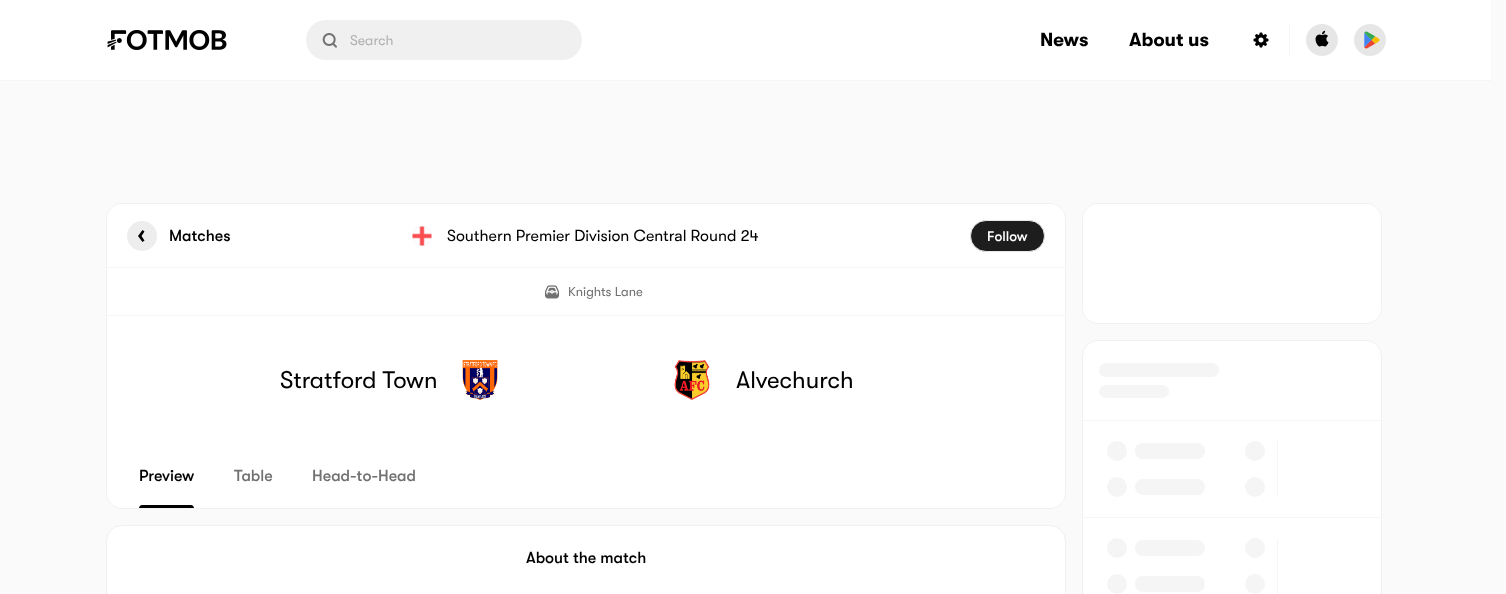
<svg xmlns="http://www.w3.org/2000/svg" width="1506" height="594">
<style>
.a{font:14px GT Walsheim;fill:#b1b1b1}
.b{font:bold 19px GT Walsheim;fill:#000}
.c{font:500 16px GT Walsheim;fill:#000}
.d{font:16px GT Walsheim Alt;fill:#000}
.e{font:500 14px GT Walsheim;fill:#fff}
.f{font:13px GT Walsheim;fill:#717171}
.g{font:24px GT Walsheim;fill:#000}
.h{font:500 16px GT Walsheim;fill:#717171}
</style>
<rect width="100%" height="100%" fill="#fafafa"/>
<path fill="#f5f5f5" d="M0 80h1491v1H0z"/>
<path fill="#fff" d="M0 0h1491v80H0z"/>
<image href="1.png" x="107" y="30" width="120" height="20"/>
<rect fill="#f0f0f0" x="306" y="20" width="276" height="40" rx="20"/>
<image href="2.png" x="322" y="33" width="15" height="15"/>
<image href="3.png" x="1253" y="32" width="16" height="16"/>
<path fill="#f5f5f5" d="M1289 24h1v32H1289z"/>
<image href="4.png" x="1306" y="24" width="32" height="32"/>
<image href="5.png" x="1354" y="24" width="32" height="32"/>
<rect fill="none" stroke="#f0f0f0" x="106.5" y="203.5" width="959" height="305" rx="15.5"/>
<rect fill="#fff" x="107" y="204" width="958" height="304" rx="15"/>
<path fill="#f5f5f5" d="M107 267h958v1H107z"/>
<circle fill="#ededed" cx="142" cy="236" r="15"/>
<path fill="#000" d="M138 236l4.5 6l2-1.5l-3-4.5l3-4.5l-2-1.5z"/>
<image href="6.png" x="412" y="226" width="20" height="20"/>
<rect fill="#1d1d1d" stroke="#e8e8e8" x="970.5" y="220.5" width="74" height="31" rx="15.5"/>
<path fill="#f5f5f5" d="M107 315h958v1H107z"/>
<image href="7.png" x="544" y="285" width="16" height="14"/>
<image href="8.png" x="462" y="360" width="36" height="40"/>
<image href="9.png" x="674" y="360" width="36" height="40"/>
<path fill="#000" d="M142 505h49c1.5 0 3 1.5 3 3h-55c0-1.5 1.5-3 3-3z"/>
<rect fill="#fff" stroke="#f0f0f0" x="106.5" y="525.5" width="959" height="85" rx="15.5"/>
<rect fill="none" stroke="#f0f0f0" x="1082.5" y="203.5" width="299" height="120" rx="15.5"/>
<rect fill="#fff" x="1083" y="204" width="298" height="119" rx="15"/>
<rect fill="#fff" stroke="#f0f0f0" x="1082.5" y="340.5" width="299" height="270" rx="15.5"/>
<path fill="#f5f5f5" d="M1083 420h298v1H1083z"/>
<rect fill="#f5f5f5" x="1099" y="363" width="120" height="14" rx="7"/>
<rect fill="#f5f5f5" x="1099" y="385" width="70" height="13" rx="6.5"/>
<path fill="#f5f5f5" d="M1083 517h298v1H1083z"/>
<circle fill="#f5f5f5" cx="1117" cy="451" r="10"/>
<rect fill="#f5f5f5" x="1135" y="443" width="70" height="16" rx="8"/>
<circle fill="#f5f5f5" cx="1255" cy="451" r="10"/>
<circle fill="#f5f5f5" cx="1117" cy="487" r="10"/>
<rect fill="#f5f5f5" x="1135" y="479" width="70" height="16" rx="8"/>
<circle fill="#f5f5f5" cx="1255" cy="487" r="10"/>
<path fill="#f5f5f5" d="M1277 441h1v56H1277z"/>
<circle fill="#f5f5f5" cx="1117" cy="548" r="10"/>
<rect fill="#f5f5f5" x="1135" y="540" width="70" height="16" rx="8"/>
<circle fill="#f5f5f5" cx="1255" cy="548" r="10"/>
<circle fill="#f5f5f5" cx="1117" cy="584" r="10"/>
<rect fill="#f5f5f5" x="1135" y="576" width="70" height="16" rx="8"/>
<circle fill="#f5f5f5" cx="1255" cy="584" r="10"/>
<path fill="#f5f5f5" d="M1277 538h1v56H1277z"/>
<text class="a" x="350" y="45">Search</text>
<text class="b" x="1040" y="46">News</text>
<text class="b" x="1129" y="46">About us</text>
<text class="c" x="169" y="241">Matches</text>
<text class="d" x="447" y="241">Southern Premier Division Central Round 24</text>
<text class="e" x="987" y="241">Follow</text>
<text class="f" x="568" y="296">Knights Lane</text>
<text class="g" x="280" y="388">Stratford Town</text>
<text class="g" x="736" y="388">Alvechurch</text>
<text class="c" x="139" y="481">Preview</text>
<text class="h" x="234" y="481">Table</text>
<text class="h" x="312" y="481">Head-to-Head</text>
<text class="c" x="526" y="563">About the match</text>
</svg>
